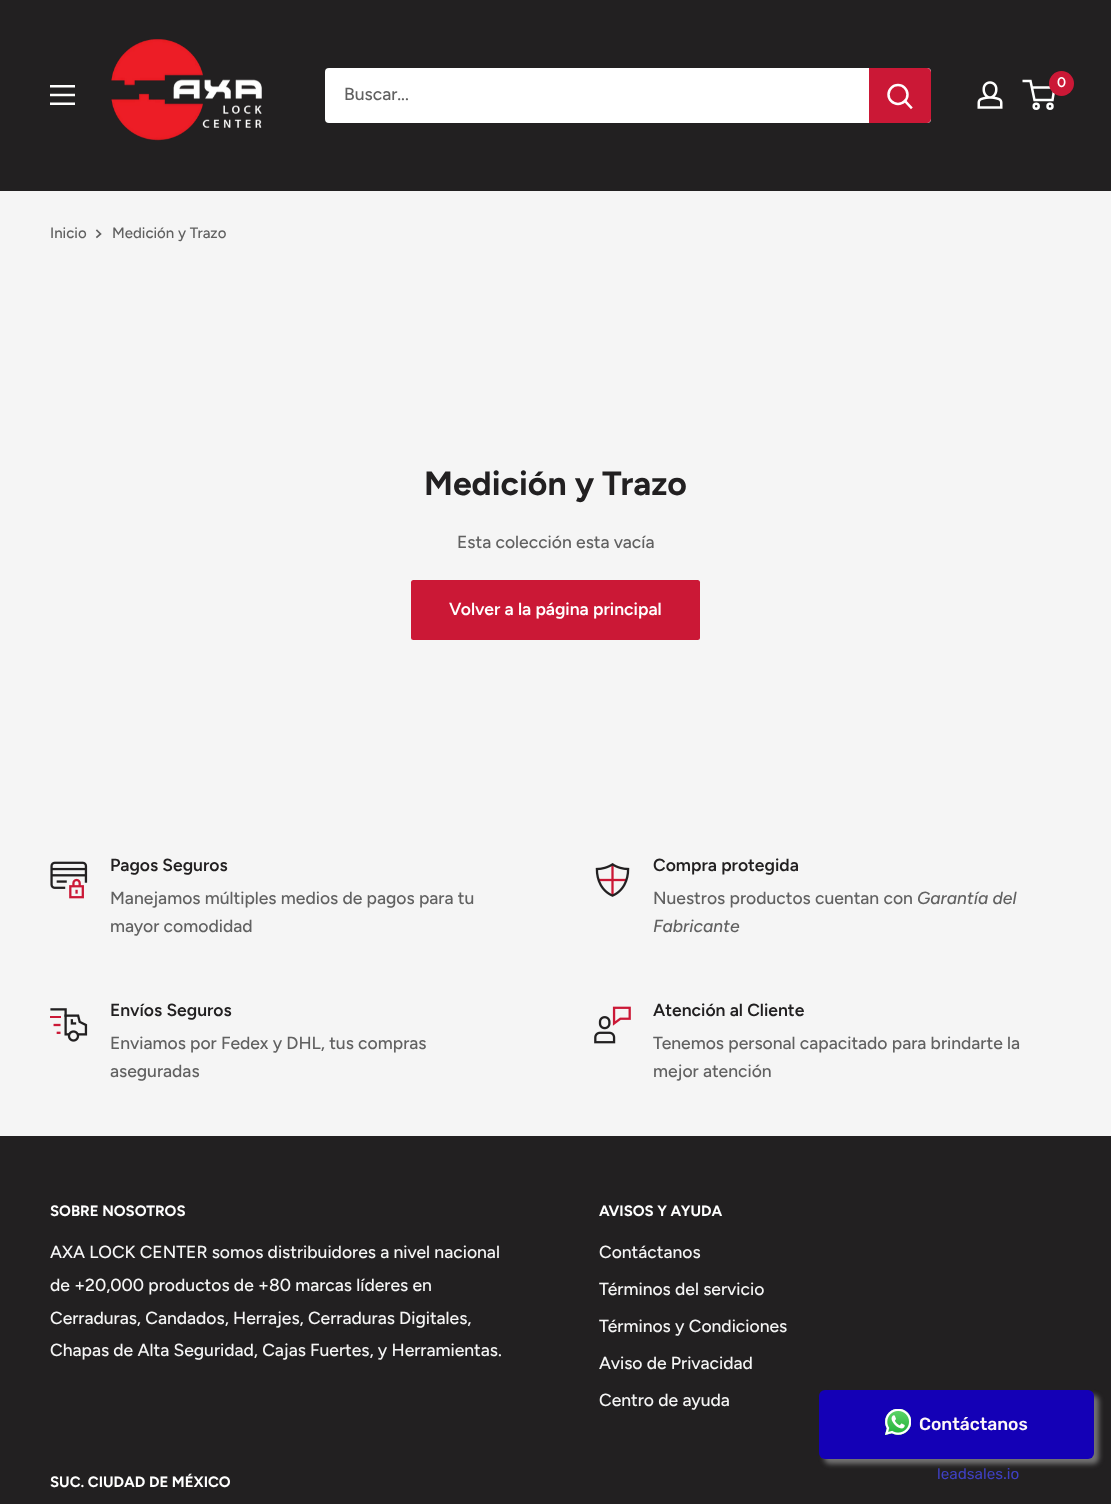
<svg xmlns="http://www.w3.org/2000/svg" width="1111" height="1504">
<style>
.a{font:600 14px Figtree;fill:#fff}
.b{font:500 17.5px Figtree;fill:#616161}
.c{font:500 15px Figtree;fill:#616161}
.d{font:bold 33.75px Figtree;fill:#222021}
.e{font:600 17.5px Figtree;fill:#fff}
.f{font:600 17.5px Figtree;fill:#222021}
.g{font:italic 500 17.5px Figtree;fill:#616161}
.h{font:bold 15px Figtree;fill:#fff}
.i{font:500 17.5px Figtree;fill:#f5f5f5}
.j{font:500 17.5px Rubik;fill:#fff8f8}
.k{font:15.25px Rubik;fill:#3f40c2}
</style>
<rect width="100%" height="100%" fill="#f5f5f5"/>
<path fill="#222021" d="M0 0h1111v191H0z"/>
<image href="1.png" x="111" y="39" width="151" height="102"/>
<image href="2.png" x="977" y="81" width="26" height="28"/>
<circle fill="none" stroke="#fff" stroke-width="2.5" cx="1036.2" cy="106.2" r="2.5"/>
<circle fill="none" stroke="#fff" stroke-width="2.5" cx="1050" cy="106.2" r="2.5"/>
<path fill="none" stroke="#fff" stroke-width="2.5" d="M1031.5 87.5h23l-2 12.5h-18l-4-19h-8"/>
<circle fill="#cb1836" cx="1061.5" cy="83.5" r="12.5"/>
<image href="3.png" x="50" y="85" width="25" height="20"/>
<rect fill="#fff" x="325" y="68" width="606" height="55" rx="4"/>
<path fill="#cb1836" d="M869 68h58c2 0 4 2 4 4v47c0 2-2 4-4 4h-58z"/>
<path fill="none" stroke="#fff" stroke-width="2.5" stroke-linecap="square" d="M911 107.5l-6-6.5"/>
<circle fill="none" stroke="#fff" stroke-width="2.5" cx="898" cy="94.5" r="9.5"/>
<path fill="none" stroke="#616161" stroke-width="1.7" stroke-linecap="square" d="M97 230.5l3.5 3.5l-3.5 3"/>
<rect fill="#cb1836" x="411" y="580" width="289" height="60" rx="2.5"/>
<image href="4.png" x="50" y="861" width="38" height="38"/>
<image href="5.png" x="595" y="863" width="35" height="34"/>
<image href="6.png" x="50" y="1008" width="38" height="34"/>
<image href="7.png" x="594" y="1006" width="37" height="38"/>
<path fill="#222021" d="M0 1136h1111v368H0z"/>
<rect fill="#868686cc" filter="blur(2.5px)" x="824" y="1395" width="275" height="69" rx="6"/>
<rect fill="#1400b6" x="819" y="1390" width="275" height="69" rx="6"/>
<image href="8.png" x="885" y="1409" width="26" height="26"/>
<text class="a" x="1057" y="87">0</text>
<text class="b" x="344" y="100">Buscar...</text>
<text class="c" x="50" y="238">Inicio</text>
<text class="c" x="112" y="238">Medición y Trazo</text>
<text class="d" x="424" y="495">Medición y Trazo</text>
<text class="b" x="457" y="548">Esta colección esta vacía</text>
<text class="e" x="449" y="615">Volver a la página principal</text>
<text class="f" x="110" y="871">Pagos Seguros</text>
<text class="b" x="110" y="904">Manejamos múltiples medios de pagos para tu</text>
<text class="b" x="110" y="932">mayor comodidad</text>
<text class="f" x="653" y="871">Compra protegida</text>
<text class="b" x="653" y="904">Nuestros productos cuentan con</text>
<text class="g" x="917" y="904">Garantía del</text>
<text class="g" x="653" y="932">Fabricante</text>
<text class="f" x="110" y="1016">Envíos Seguros</text>
<text class="b" x="110" y="1049">Enviamos por Fedex y DHL, tus compras</text>
<text class="b" x="110" y="1077">aseguradas</text>
<text class="f" x="653" y="1016">Atención al Cliente</text>
<text class="b" x="653" y="1049">Tenemos personal capacitado para brindarte la</text>
<text class="b" x="653" y="1077">mejor atención</text>
<text class="h" x="50" y="1216">SOBRE NOSOTROS</text>
<text class="i" x="50" y="1258">AXA LOCK CENTER somos distribuidores a nivel nacional</text>
<text class="i" x="50" y="1291">de +20,000 productos de +80 marcas líderes en</text>
<text class="i" x="50" y="1324">Cerraduras, Candados, Herrajes, Cerraduras Digitales,</text>
<text class="i" x="50" y="1356">Chapas de Alta Seguridad, Cajas Fuertes, y Herramientas.</text>
<text class="h" x="599" y="1216">AVISOS Y AYUDA</text>
<text class="i" x="599" y="1258">Contáctanos</text>
<text class="i" x="599" y="1295">Términos del servicio</text>
<text class="i" x="599" y="1332">Términos y Condiciones</text>
<text class="i" x="599" y="1369">Aviso de Privacidad</text>
<text class="i" x="599" y="1406">Centro de ayuda</text>
<text class="h" x="50" y="1487">SUC. CIUDAD DE MÉXICO</text>
<text class="j" x="919" y="1430">Contáctanos</text>
<text class="k" x="937" y="1479">leadsales.io</text>
</svg>
